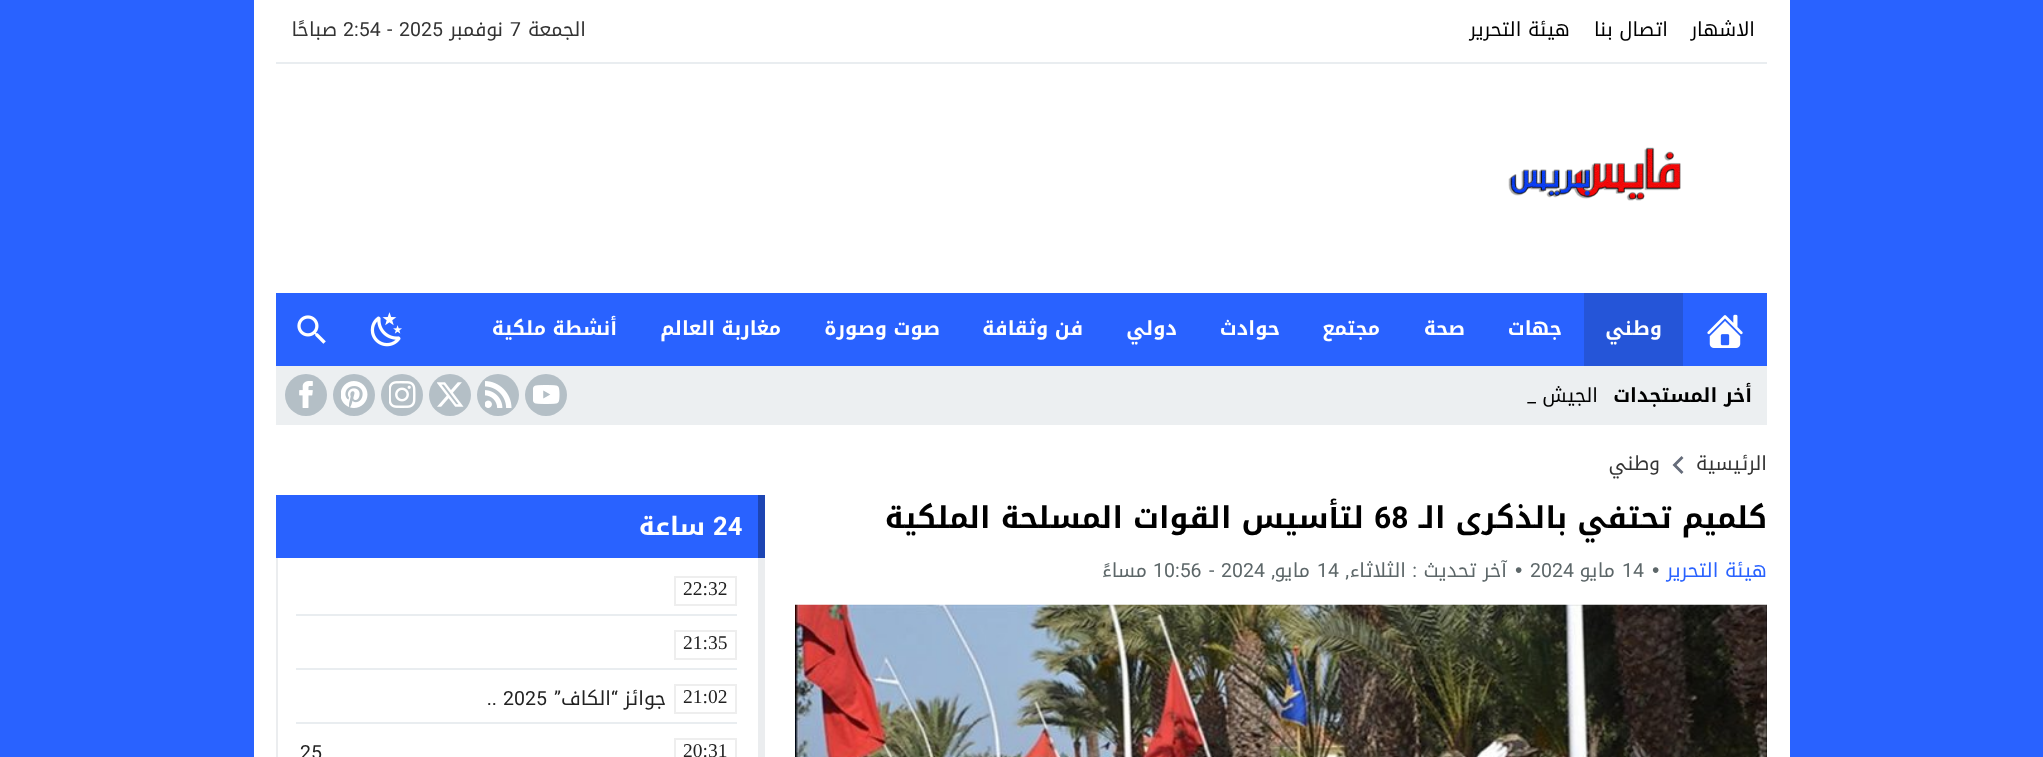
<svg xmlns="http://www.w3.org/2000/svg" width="2043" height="757">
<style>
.a{font:19.5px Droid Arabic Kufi;direction:rtl;fill:#000}
.b{font:19.5px Droid Arabic Kufi;direction:rtl;fill:#333}
.c{font:19.5px Roboto;fill:#333}
.d{font:bold 19.5px Droid Arabic Kufi;direction:rtl;fill:#fff}
.e{font:bold 19.5px Droid Arabic Kufi;direction:rtl;fill:#000}
.f{font:19.5px Roboto;direction:rtl;fill:#000}
.g{font:bold 30px Droid Arabic Kufi;direction:rtl;fill:#000}
.h{font:bold 30px Roboto;fill:#000}
.i{font:19.5px Droid Arabic Kufi;direction:rtl;fill:#2962ff}
.j{font:21px Liberation Sans;fill:#5d6769}
.k{font:19.5px Roboto;fill:#5d6769}
.l{font:19.5px Droid Arabic Kufi;direction:rtl;fill:#5d6769}
.m{font:19.5px Roboto;direction:rtl;fill:#5d6769}
.n{font:bold 25.5px Roboto;fill:#fff}
.o{font:bold 25.5px Droid Arabic Kufi;direction:rtl;fill:#fff}
.p{font:19.5px Liberation Serif;fill:#222}
.q{font:19.5px Droid Arabic Kufi;direction:rtl;fill:#222}
.r{font:19.5px Roboto;direction:rtl;fill:#222}
.s{font:19.5px Roboto;fill:#222}
</style>
<rect width="100%" height="100%" fill="#2962ff"/>
<path fill="#fff" d="M254 0h1536v757H254z"/>
<path fill="#e9edf0" d="M276 62h1491v2H276z"/>
<image href="1.png" x="1508" y="147" width="173" height="54"/>
<path fill="#2962ff" d="M276 293h1491v73H276z"/>
<image href="2.png" x="1707" y="314" width="36" height="34"/>
<path fill="#2555d8" d="M1584 293h99v73H1584z"/>
<image href="3.png" x="370" y="312" width="32" height="35"/>
<image href="4.png" x="297" y="315" width="29" height="29"/>
<path fill="#eceff1" d="M276 366h1491v59H276z"/>
<circle fill="#b4bfc6" cx="546" cy="395" r="21"/>
<image href="5.png" x="533" y="385" width="27" height="19"/>
<circle fill="#b4bfc6" cx="498" cy="395" r="21"/>
<image href="6.png" x="485" y="381" width="27" height="27"/>
<circle fill="#b4bfc6" cx="450" cy="395" r="21"/>
<image href="7.png" x="437" y="382" width="27" height="25"/>
<circle fill="#b4bfc6" cx="402" cy="395" r="21"/>
<image href="8.png" x="389" y="381" width="27" height="27"/>
<circle fill="#b4bfc6" cx="354" cy="395" r="21"/>
<image href="9.png" x="341" y="381" width="27" height="27"/>
<circle fill="#b4bfc6" cx="306" cy="395" r="21"/>
<image href="10.png" x="299" y="381" width="14" height="27"/>
<path fill="#656c7a" d="M1683.5 472l-7-7l7-7l-2-2l-9 9l9 9z"/>
<image href="11.png" x="795" y="604" width="972" height="153"/>
<path fill="#2962ff" d="M276 495h482v63H276z"/>
<path fill="#1d45b3" d="M758 495h7v63H758z"/>
<path fill="#ebedef" d="M758 558h7v199H758z"/>
<path fill="#ebedef" d="M276 558h2v199H276z"/>
<path fill="#e9edf0" d="M296 614h441v2H296z"/>
<path fill="none" stroke="#eee" stroke-width="2" d="M675 577h61v28H675z"/>
<path fill="#e9edf0" d="M296 668h441v2H296z"/>
<path fill="none" stroke="#eee" stroke-width="2" d="M675 631h61v28H675z"/>
<path fill="#e9edf0" d="M296 722h441v2H296z"/>
<path fill="none" stroke="#eee" stroke-width="2" d="M675 685h61v28H675z"/>
<path fill="none" stroke="#eee" stroke-width="2" d="M675 739h61v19H675z"/>
<text class="a" x="1755" y="36">الاشهار</text>
<text class="a" x="1668" y="36">اتصال بنا</text>
<text class="a" x="1570" y="36">هيئة التحرير</text>
<text class="b" x="586" y="36">الجمعة</text>
<text class="c" x="510" y="36">7</text>
<text class="b" x="503" y="36">نوفمبر</text>
<text class="c" x="399" y="36">2025</text>
<text class="c" x="387" y="36">-</text>
<text class="c" x="343" y="36">2:54</text>
<text class="b" x="337" y="36">صباحًا</text>
<text class="d" x="1662" y="335">وطني</text>
<text class="d" x="1562" y="335">جهات</text>
<text class="d" x="1465" y="335">صحة</text>
<text class="d" x="1380" y="335">مجتمع</text>
<text class="d" x="1280" y="335">حوادث</text>
<text class="d" x="1177" y="335">دولي</text>
<text class="d" x="1083" y="335">فن وثقافة</text>
<text class="d" x="940" y="335">صوت وصورة</text>
<text class="d" x="781" y="335">مغاربة العالم</text>
<text class="d" x="617" y="335">أنشطة ملكية</text>
<text class="e" x="1752" y="402">أخر المستجدات</text>
<text class="a" x="1598" y="402">الجيش</text>
<text class="f" x="1536" y="402">_</text>
<text class="b" x="1767" y="470">الرئيسية</text>
<text class="b" x="1660" y="470">وطني</text>
<text class="g" x="1767" y="528">كلميم تحتفي بالذكرى الـ</text>
<text class="h" x="1374" y="528">68</text>
<text class="g" x="1364" y="528">لتأسيس القوات المسلحة الملكية</text>
<text class="i" x="1767" y="577">هيئة التحرير</text>
<text class="j" x="1652" y="577">•</text>
<text class="k" x="1622" y="577">14</text>
<text class="l" x="1615" y="577">مايو</text>
<text class="k" x="1530" y="577">2024</text>
<text class="j" x="1515" y="577">•</text>
<text class="l" x="1507" y="577">آخر تحديث</text>
<text class="m" x="1417" y="577">:</text>
<text class="l" x="1406" y="577">الثلاثاء</text>
<text class="k" x="1317" y="577">14</text>
<text class="l" x="1310" y="577">مايو</text>
<text class="k" x="1221" y="577">2024</text>
<text class="k" x="1209" y="577">-</text>
<text class="k" x="1153" y="577">10:56</text>
<text class="l" x="1147" y="577">مساءً</text>
<text class="m" x="1349" y="577">,</text>
<text class="m" x="1275" y="577">,</text>
<text class="n" x="713" y="535">24</text>
<text class="o" x="705" y="535">ساعة</text>
<text class="p" x="683" y="595">22:32</text>
<text class="p" x="683" y="649">21:35</text>
<text class="p" x="683" y="703">21:02</text>
<text class="q" x="666" y="705">جوائز</text>
<text class="r" x="618" y="705">“</text>
<text class="q" x="611" y="705">الكاف</text>
<text class="r" x="561" y="705">”</text>
<text class="s" x="503" y="705">2025</text>
<text class="r" x="497" y="705">..</text>
<text class="p" x="683" y="757">20:31</text>
<text class="s" x="300" y="759">25</text>
</svg>
